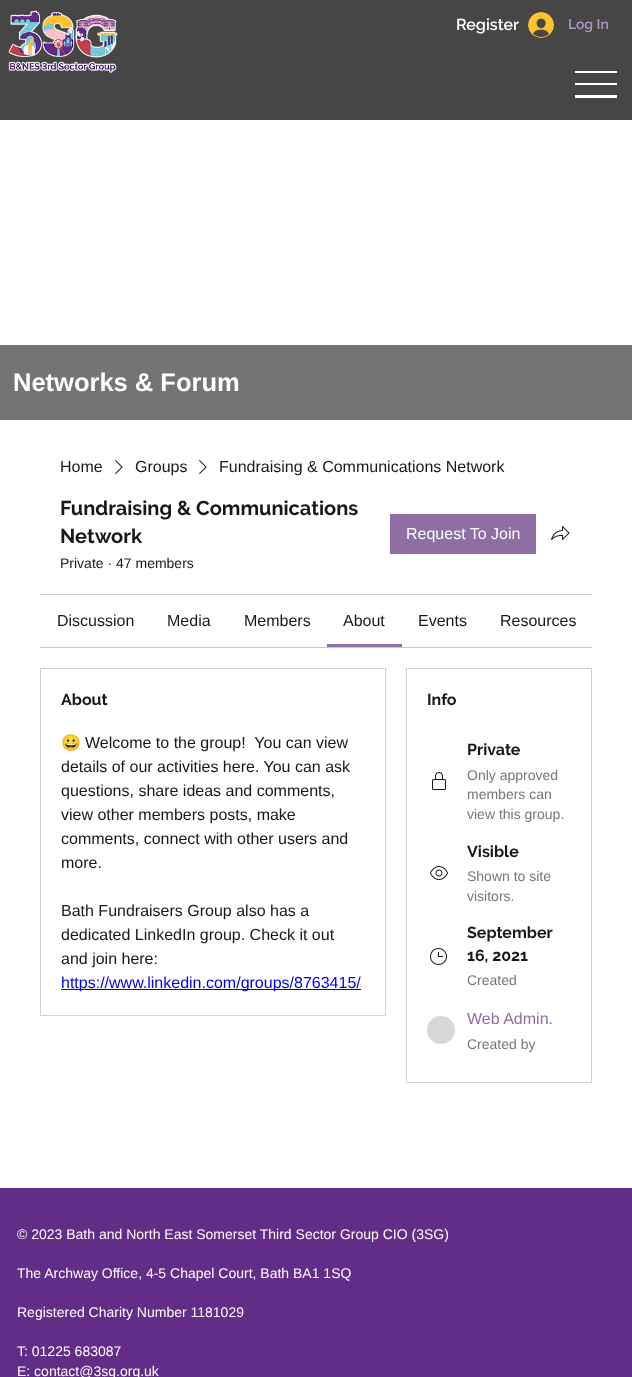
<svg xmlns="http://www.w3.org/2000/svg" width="632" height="1377">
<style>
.a{font:600 16px Raleway;fill:#fff}
.b{font:600 14px Raleway;fill:#b198c3}
.c{font:bold 25.5px Liberation Sans;fill:#fff}
.d{font:16px Liberation Sans;fill:#181818}
.e{font:bold 20px Raleway;fill:#181818}
.f{font:14px Liberation Sans;fill:#181818}
.g{font:16px Liberation Sans;fill:#fff}
.h{font:bold 16px Raleway;fill:#181818}
.i{font:16px Noto Color Emoji;fill:#181818}
.j{font:16px Liberation Sans;fill:#00e}
.k{font:14px Liberation Sans;fill:#767676}
.l{font:16px Liberation Sans;fill:#8e6ea5}
.m{font:14px Liberation Sans;fill:#fff}
</style>
<rect width="100%" height="100%" fill="#fff"/>
<path fill="#464646" d="M0 0h632v120H0z"/>
<image href="1.png" x="8" y="10" width="110" height="63"/>
<image href="2.png" x="528" y="12" width="26" height="26"/>
<path fill="#fff" d="M575 71h42v2H575z"/>
<path fill="#fff" d="M575 83h42v2H575z"/>
<path fill="#fff" d="M575 95h42v3H575z"/>
<path fill="#747474" d="M0 345h632v75H0z"/>
<image href="3.png" x="115" y="460" width="8" height="14"/>
<image href="3.png" x="199" y="460" width="8" height="14"/>
<path fill="#8e6ea5" d="M390 514h146v40H390z"/>
<image href="4.png" x="551" y="526" width="19" height="14"/>
<path fill="#c7c7c7" d="M40 594h552v1H40z"/>
<path fill="#c7c7c7" d="M40 647h552v1H40z"/>
<path fill="#8e6ea5" d="M327 644h75v3H327z"/>
<path fill="none" stroke="#d1d1d1" d="M40.5 668.5h345v347H40.5z"/>
<path fill="#00e" d="M61 989h300v1H61z"/>
<path fill="none" stroke="#d1d1d1" d="M406.5 668.5h185v414H406.5z"/>
<image href="5.png" x="432" y="772" width="14" height="18"/>
<image href="6.png" x="430" y="866" width="18" height="14"/>
<image href="7.png" x="430" y="948" width="17" height="17"/>
<circle fill="#d8d8d8" cx="441" cy="1030" r="14"/>
<path fill="#612d87" d="M0 1188h632v189H0z"/>
<text class="a" x="456" y="30">Register</text>
<text class="b" x="568" y="29">Log In</text>
<text class="c" x="13" y="391">Networks &amp; Forum</text>
<text class="d" x="60" y="472">Home</text>
<text class="d" x="135" y="472">Groups</text>
<text class="d" x="219" y="472">Fundraising &amp; Communications Network</text>
<text class="e" x="60" y="515">Fundraising &amp; Communications</text>
<text class="e" x="60" y="543">Network</text>
<text class="f" x="60" y="568">Private · 47 members</text>
<text class="g" x="406" y="539">Request To Join</text>
<text class="d" x="57" y="626">Discussion</text>
<text class="d" x="167" y="626">Media</text>
<text class="d" x="244" y="626">Members</text>
<text class="d" x="343" y="626">About</text>
<text class="d" x="418" y="626">Events</text>
<text class="d" x="500" y="626">Resources</text>
<text class="h" x="61" y="705">About</text>
<text class="i" x="61" y="748">😀</text>
<text class="d" xml:space="preserve" x="85" y="748">Welcome to the group!  You can view</text>
<text class="d" x="61" y="772">details of our activities here. You can ask</text>
<text class="d" x="61" y="796">questions, share ideas and comments,</text>
<text class="d" x="61" y="820">view other members posts, make</text>
<text class="d" x="61" y="844">comments, connect with other users and</text>
<text class="d" x="61" y="868">more.</text>
<text class="d" x="61" y="916">Bath Fundraisers Group also has a</text>
<text class="d" x="61" y="940">dedicated LinkedIn group. Check it out</text>
<text class="d" x="61" y="964">and join here:</text>
<text class="j" x="61" y="988">https://www.linkedin.com/groups/8763415/</text>
<text class="h" x="427" y="705">Info</text>
<text class="h" x="467" y="755">Private</text>
<text class="k" x="467" y="780">Only approved</text>
<text class="k" x="467" y="799">members can</text>
<text class="k" x="467" y="819">view this group.</text>
<text class="h" x="467" y="857">Visible</text>
<text class="k" x="467" y="881">Shown to site</text>
<text class="k" x="467" y="901">visitors.</text>
<text class="h" x="467" y="938">September</text>
<text class="h" x="467" y="961">16, 2021</text>
<text class="k" x="467" y="985">Created</text>
<text class="l" x="467" y="1024">Web Admin.</text>
<text class="k" x="467" y="1049">Created by</text>
<text class="m" x="17" y="1239">© 2023 Bath and North East Somerset Third Sector Group CIO (3SG)</text>
<text class="m" x="17" y="1278">The Archway Office, 4-5 Chapel Court, Bath BA1 1SQ</text>
<text class="m" x="17" y="1317">Registered Charity Number 1181029</text>
<text class="m" x="17" y="1356">T: 01225 683087</text>
<text class="m" x="17" y="1376">E: contact@3sg.org.uk</text>
</svg>
